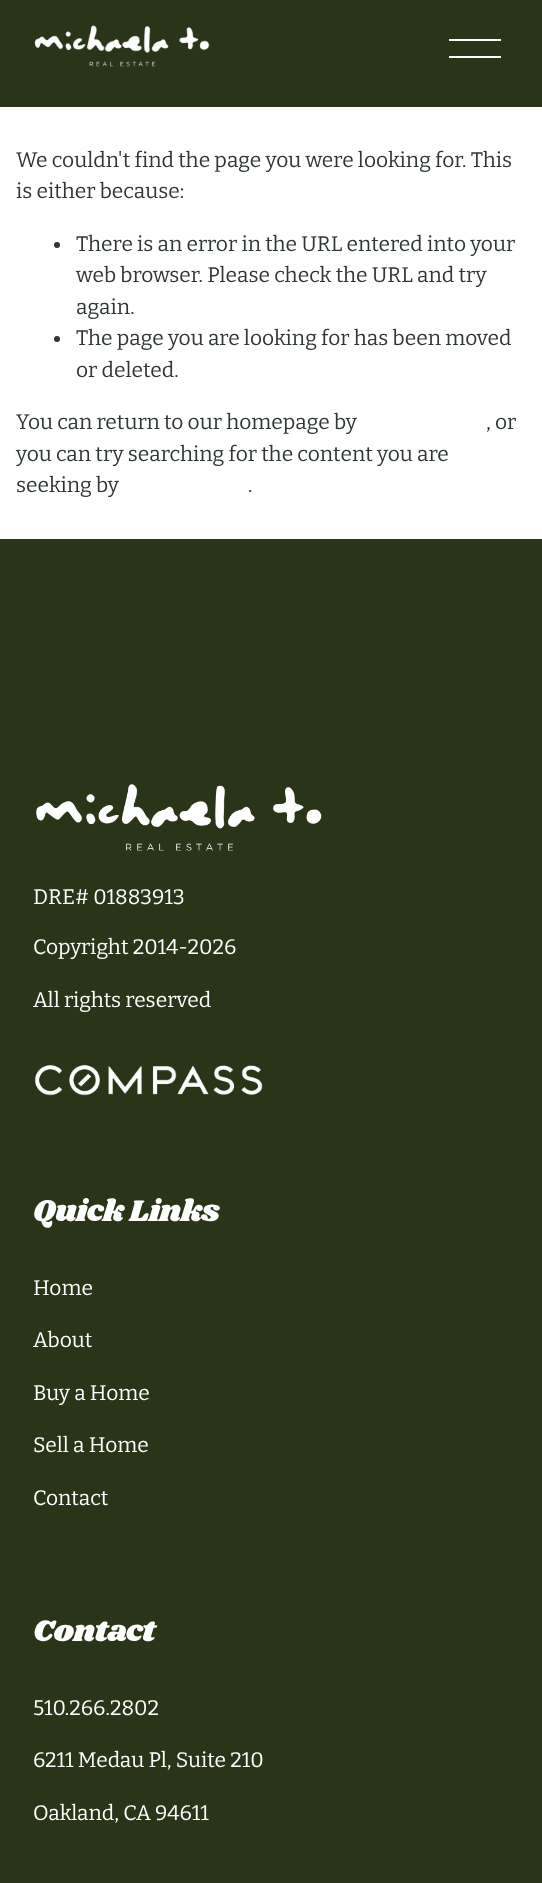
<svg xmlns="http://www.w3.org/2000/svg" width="542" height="1883">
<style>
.a{font:21px Bitter;fill:#303636}
.b{font:21px Bitter;fill:#fff}
.c{font:30.75px Shrikhand;letter-spacing:-0.6px;fill:#fff}
</style>
<rect width="100%" height="100%" fill="#fff"/>
<path fill="#2a3419" d="M0 0h542v107H0z"/>
<image href="1.png" x="34" y="25" width="176" height="42"/>
<path fill="#fff" d="M449 39h52v2H449z"/>
<path fill="#fff" d="M449 56h52v2H449z"/>
<circle fill="#303636" cx="57" cy="245" r="3"/>
<circle fill="#303636" cx="57" cy="339" r="3"/>
<path fill="#2a3419" d="M0 539h542v1344H0z"/>
<image href="2.png" x="36" y="784" width="286" height="67"/>
<image href="3.png" x="34" y="1064" width="229" height="32"/>
<text class="a" x="16" y="167">We couldn't find the page you were looking for. This</text>
<text class="a" x="16" y="198">is either because:</text>
<text class="a" x="76" y="251">There is an error in the URL entered into your</text>
<text class="a" x="76" y="282">web browser. Please check the URL and try</text>
<text class="a" x="76" y="314">again.</text>
<text class="a" x="76" y="345">The page you are looking for has been moved</text>
<text class="a" x="76" y="377">or deleted.</text>
<text class="a" x="16" y="429">You can return to our homepage by</text>
<text class="a" x="486" y="429">, or</text>
<text class="a" x="16" y="461">you can try searching for the content you are</text>
<text class="a" x="16" y="492">seeking by</text>
<text class="a" x="248" y="492">.</text>
<text class="b" x="33" y="904">DRE# 01883913</text>
<text class="b" x="33" y="954">Copyright 2014-2026</text>
<text class="b" x="33" y="1007">All rights reserved</text>
<text class="c" x="33" y="1221">Quick Links</text>
<text class="b" x="33" y="1295">Home</text>
<text class="b" x="33" y="1347">About</text>
<text class="b" x="33" y="1400">Buy a Home</text>
<text class="b" x="33" y="1452">Sell a Home</text>
<text class="b" x="33" y="1505">Contact</text>
<text class="c" x="33" y="1641">Contact</text>
<text class="b" x="33" y="1715">510.266.2802</text>
<text class="b" x="33" y="1767">6211 Medau Pl, Suite 210</text>
<text class="b" x="33" y="1820">Oakland, CA 94611</text>
</svg>
